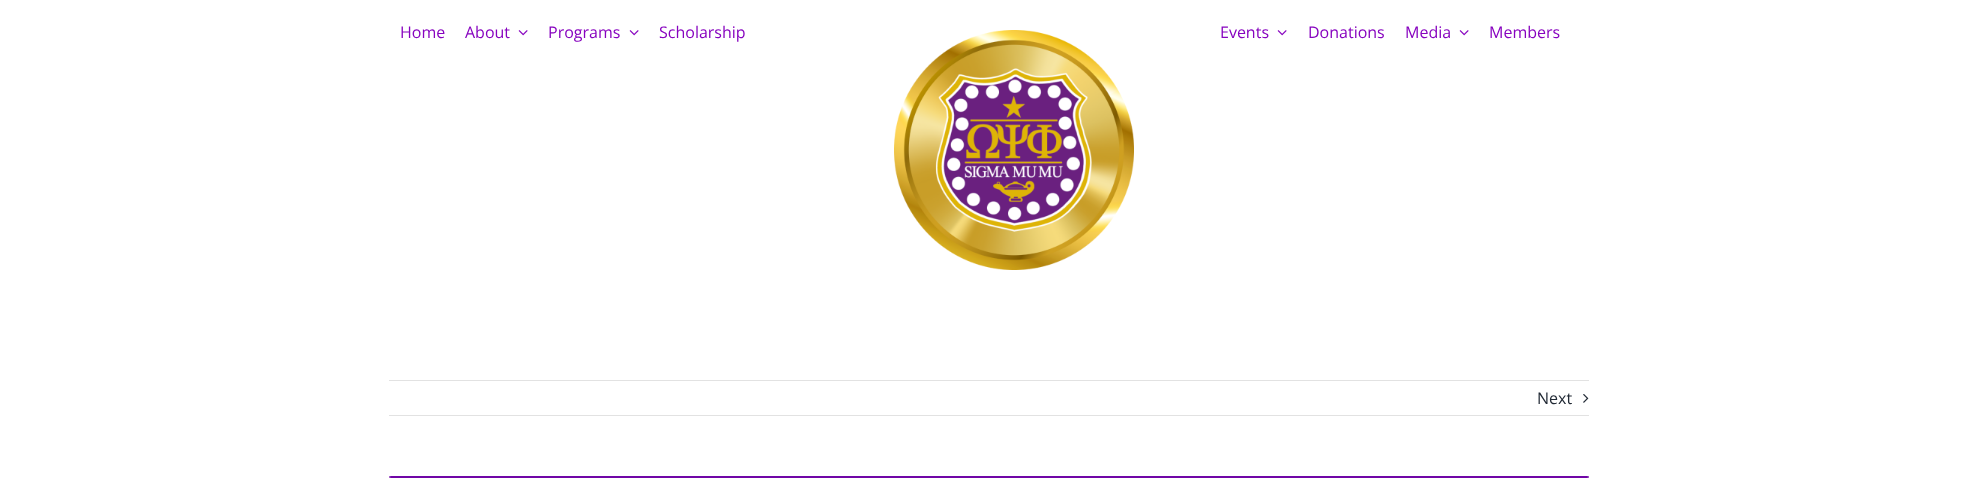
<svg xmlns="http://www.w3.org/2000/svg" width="1977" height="478">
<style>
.a{font:16px Open Sans;fill:#8703bf}
.b{font:16px Open Sans;fill:#212934}
</style>
<rect width="100%" height="100%" fill="#fff"/>
<image href="1.png" x="518" y="30" width="10" height="6"/>
<image href="1.png" x="629" y="30" width="10" height="6"/>
<image href="2.png" x="894" y="30" width="240" height="240"/>
<image href="1.png" x="1277" y="30" width="10" height="6"/>
<image href="1.png" x="1459" y="30" width="10" height="6"/>
<path fill="#e2e2e2" d="M389 380h1200v1H389z"/>
<path fill="#e2e2e2" d="M389 415h1200v1H389z"/>
<image href="3.png" x="1583" y="394" width="6" height="9"/>
<image href="4.png" x="389" y="476" width="1200" height="2"/>
<text class="a" x="400" y="38">Home</text>
<text class="a" x="465" y="38">About</text>
<text class="a" x="548" y="38">Programs</text>
<text class="a" x="659" y="38">Scholarship</text>
<text class="a" x="1220" y="38">Events</text>
<text class="a" x="1308" y="38">Donations</text>
<text class="a" x="1405" y="38">Media</text>
<text class="a" x="1489" y="38">Members</text>
<text class="b" x="1537" y="404">Next</text>
</svg>
